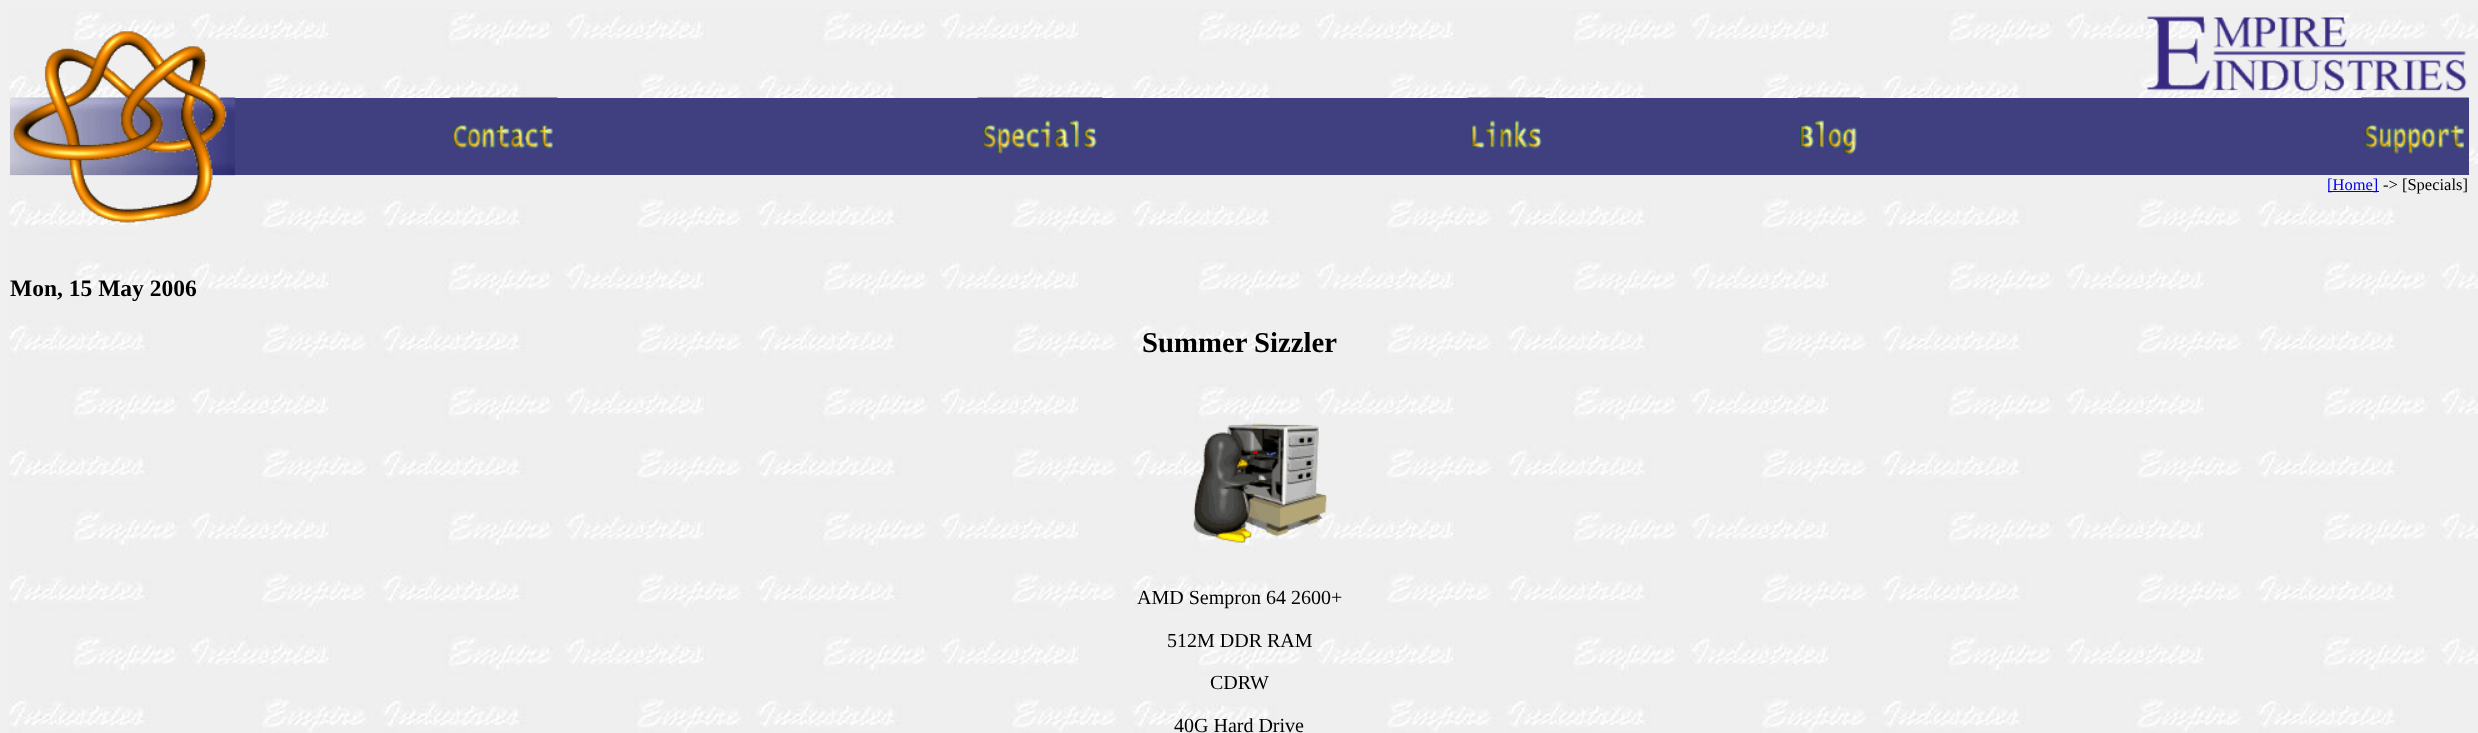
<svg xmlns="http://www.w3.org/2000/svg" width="2478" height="733">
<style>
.a{font:16.5px Liberation Serif;fill:#00e}
.b{font:16.5px Liberation Serif;fill:#000}
.c{font:bold 23.5px Liberation Serif;fill:#000}
.d{font:bold 28.75px Liberation Serif;fill:#000}
.e{font:20px Liberation Serif;fill:#000}
</style>
<rect width="100%" height="100%" fill="#f0f0f0"/>
<image href="1.png" x="9" y="10" width="2469" height="723"/>
<path fill="#404080" d="M10 98h2459v77H10z"/>
<image href="2.png" x="10" y="31" width="225" height="192"/>
<image href="3.png" x="2147" y="16" width="320" height="76"/>
<image href="4.png" x="450" y="97" width="108" height="52"/>
<image href="5.png" x="977" y="97" width="126" height="57"/>
<image href="6.png" x="1467" y="97" width="78" height="52"/>
<image href="7.png" x="1797" y="97" width="63" height="58"/>
<image href="8.png" x="2361" y="97" width="108" height="57"/>
<path fill="#00e" d="M2328 191h51v1H2328z"/>
<image href="9.png" x="1193" y="423" width="134" height="120"/>
<text class="a" x="2327" y="190">[Home]</text>
<text class="b" x="2383" y="190">-&gt; [Specials]</text>
<text class="c" x="10" y="296">Mon, 15 May 2006</text>
<text class="d" x="1142" y="352">Summer Sizzler</text>
<text class="e" x="1137" y="604">AMD Sempron 64 2600+</text>
<text class="e" x="1167" y="647">512M DDR RAM</text>
<text class="e" x="1210" y="689">CDRW</text>
<text class="e" x="1174" y="732">40G Hard Drive</text>
</svg>
